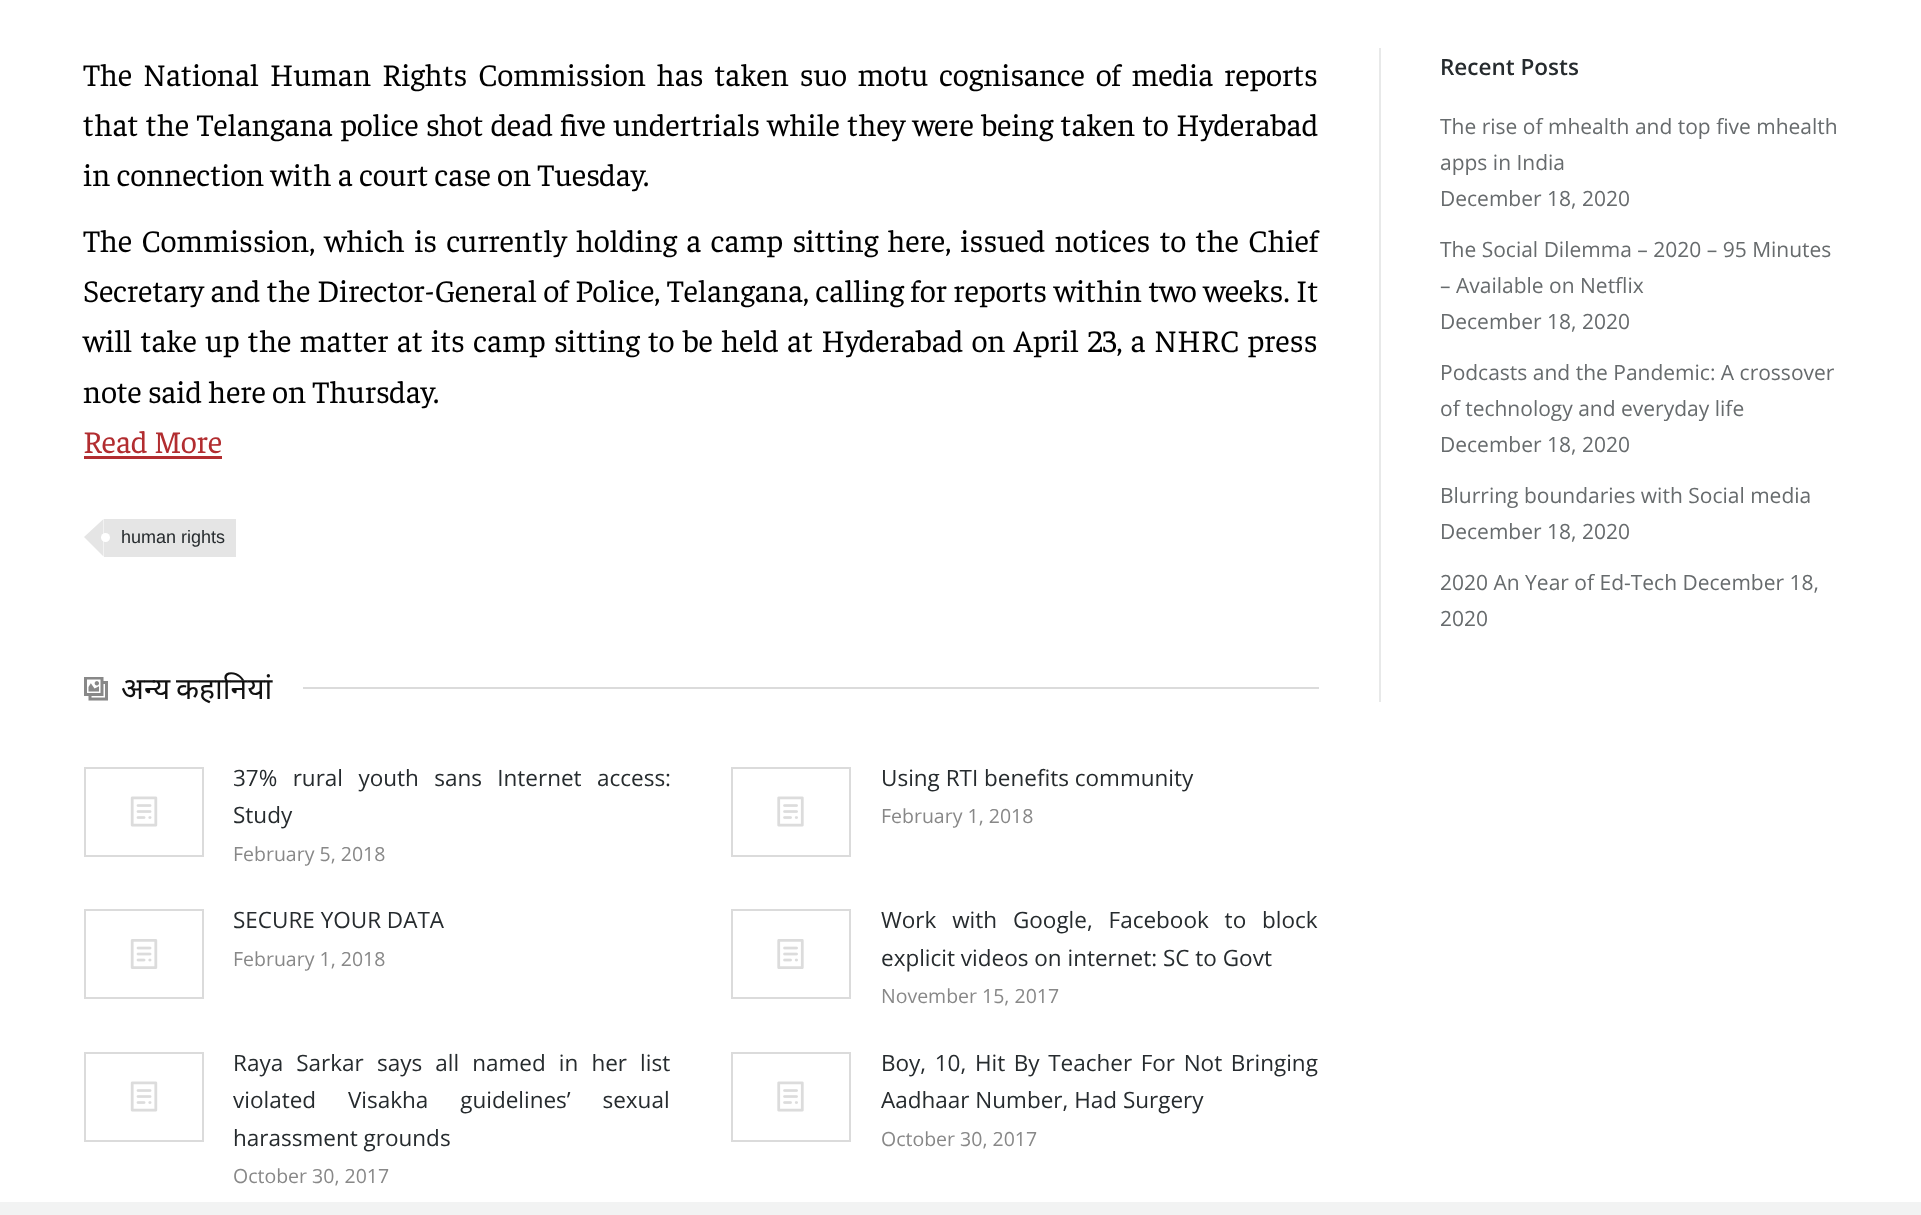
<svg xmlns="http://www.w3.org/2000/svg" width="1921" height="1215">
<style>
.a{font:31.5px Faustina;fill:#000}
.b{font:31.5px Faustina;fill:#b22d30}
.c{font:18px Liberation Sans;fill:#262b2e}
.d{font:30px Noto Sans;fill:#111}
.e{font:22.5px Open Sans;fill:#262b2e}
.f{font:19.5px Open Sans;fill:#888}
.g{font:600 22.5px Open Sans;fill:#262b2e}
.h{font:21px Open Sans;fill:#676b6d}
</style>
<rect width="100%" height="100%" fill="#fff"/>
<path fill="#b22d30" d="M84 456h138v3H84z"/>
<path fill="#e5e5e5" d="M104 519h132v38H104z"/>
<path fill="#e5e5e5" d="M103.5 519v37.5l-19.5-19.5z"/>
<circle fill="#fff" cx="105.5" cy="537.5" r="4.5"/>
<image href="1.png" x="84" y="677" width="24" height="24"/>
<path fill="#dbdbdb" d="M303 687h1016v2H303z"/>
<path fill="none" stroke="#dbdbdb" stroke-width="2" d="M85 768h118v88H85z"/>
<image href="2.png" x="130" y="796" width="28" height="31"/>
<path fill="none" stroke="#dbdbdb" stroke-width="2" d="M732 768h118v88H732z"/>
<image href="3.png" x="777" y="796" width="27" height="31"/>
<path fill="none" stroke="#dbdbdb" stroke-width="2" d="M85 910h118v88H85z"/>
<image href="4.png" x="130" y="939" width="28" height="30"/>
<path fill="none" stroke="#dbdbdb" stroke-width="2" d="M732 910h118v88H732z"/>
<image href="5.png" x="777" y="939" width="27" height="30"/>
<path fill="none" stroke="#dbdbdb" stroke-width="2" d="M85 1053h118v88H85z"/>
<image href="2.png" x="130" y="1081" width="28" height="31"/>
<path fill="none" stroke="#dbdbdb" stroke-width="2" d="M732 1053h118v88H732z"/>
<image href="3.png" x="777" y="1081" width="27" height="31"/>
<path fill="#e8e9e9" d="M1379 48h2v654H1379z"/>
<path fill="#f2f3f3" d="M0 1202h1921v13H0z"/>
<text class="a" x="83" y="86" word-spacing="4.5">The National Human Rights Commission has taken suo motu cognisance of media reports</text>
<text class="a" x="83" y="136" word-spacing="1">that the Telangana police shot dead five undertrials while they were being taken to Hyderabad</text>
<text class="a" x="83" y="186">in connection with a court case on Tuesday.</text>
<text class="a" x="83" y="252" word-spacing="3">The Commission, which is currently holding a camp sitting here, issued notices to the Chief</text>
<text class="a" x="83" y="302" word-spacing="0.25">Secretary and the Director-General of Police, Telangana, calling for reports within two weeks. It</text>
<text class="a" x="83" y="352" word-spacing="2">will take up the matter at its camp sitting to be held at Hyderabad on April 23, a NHRC press</text>
<text class="a" x="83" y="403">note said here on Thursday.</text>
<text class="b" x="83" y="453">Read More</text>
<text class="c" x="121" y="543">human rights</text>
<text class="d" x="121" y="699" word-spacing="-2">अन्य कहानियां</text>
<text class="e" x="233" y="786" word-spacing="9.5">37% rural youth sans Internet access:</text>
<text class="e" x="233" y="823">Study</text>
<text class="f" x="233" y="861">February 5, 2018</text>
<text class="e" x="881" y="786">Using RTI benefits community</text>
<text class="f" x="881" y="823">February 1, 2018</text>
<text class="e" x="233" y="928">SECURE YOUR DATA</text>
<text class="f" x="233" y="966">February 1, 2018</text>
<text class="e" x="881" y="928" word-spacing="10">Work with Google, Facebook to block</text>
<text class="e" x="881" y="966">explicit videos on internet: SC to Govt</text>
<text class="f" x="881" y="1003">November 15, 2017</text>
<text class="e" x="233" y="1071" word-spacing="7.25">Raya Sarkar says all named in her list</text>
<text class="e" x="233" y="1108" word-spacing="26">violated Visakha guidelines’ sexual</text>
<text class="e" x="233" y="1146">harassment grounds</text>
<text class="f" x="233" y="1183">October 30, 2017</text>
<text class="e" x="881" y="1071" word-spacing="2.75">Boy, 10, Hit By Teacher For Not Bringing</text>
<text class="e" x="881" y="1108">Aadhaar Number, Had Surgery</text>
<text class="f" x="881" y="1146">October 30, 2017</text>
<text class="g" x="1440" y="75">Recent Posts</text>
<text class="h" x="1440" y="134">The rise of mhealth and top five mhealth</text>
<text class="h" x="1440" y="170">apps in India</text>
<text class="h" x="1440" y="206">December 18, 2020</text>
<text class="h" x="1440" y="257">The Social Dilemma – 2020 – 95 Minutes</text>
<text class="h" x="1440" y="293">– Available on Netflix</text>
<text class="h" x="1440" y="329">December 18, 2020</text>
<text class="h" x="1440" y="380">Podcasts and the Pandemic: A crossover</text>
<text class="h" x="1440" y="416">of technology and everyday life</text>
<text class="h" x="1440" y="452">December 18, 2020</text>
<text class="h" x="1440" y="503">Blurring boundaries with Social media</text>
<text class="h" x="1440" y="539">December 18, 2020</text>
<text class="h" x="1440" y="590">2020 An Year of Ed-Tech December 18,</text>
<text class="h" x="1440" y="626">2020</text>
</svg>
